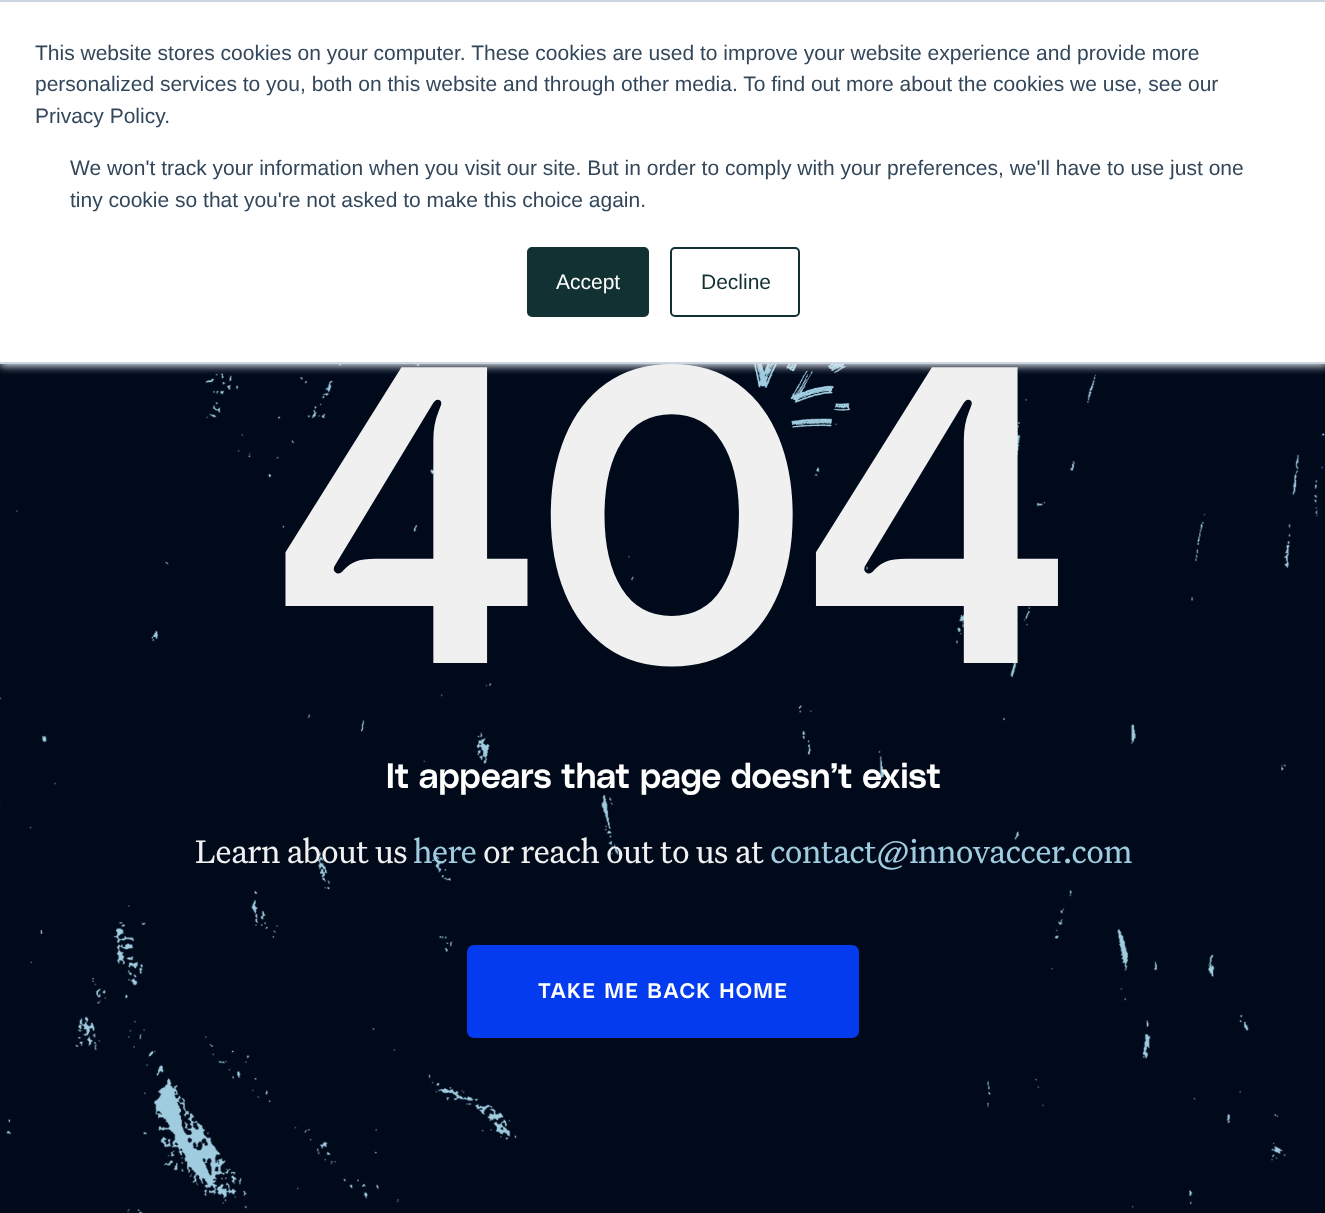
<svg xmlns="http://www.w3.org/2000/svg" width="1325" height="1213">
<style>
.a{font:21px Liberation Sans;fill:#33475b}
.b{font:21px Liberation Sans;fill:#fff}
.c{font:21px Liberation Sans;fill:#123133}
.d{font:600 420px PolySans;letter-spacing:-17px;fill:#f0f0f0}
.e{font:600 35px PolySans;fill:#fff}
.f{font:35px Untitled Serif;letter-spacing:-0.7px;fill:#f0f0f0}
.g{font:35px Untitled Serif;letter-spacing:-0.7px;fill:#a0cce0}
.h{font:600 21px PolySans;letter-spacing:1.9px;fill:#fff}
</style>
<rect width="100%" height="100%" fill="#a0cce0"/>
<image href="1.png" x="0" y="364" width="1325" height="849"/>
<image href="2.png" x="753" y="364" width="97" height="64"/>
<path fill="#eaf0f6" filter="blur(4.5px)" d="M0 2h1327v364H0z"/>
<path fill="#fff" d="M0 2h1325v360H0z"/>
<path fill="#cbd6e2" d="M0 0h1325v2H0z"/>
<rect fill="#123133" stroke="#123133" stroke-width="2" x="528" y="248" width="120" height="68" rx="4"/>
<rect fill="none" stroke="#123133" stroke-width="2" x="671" y="248" width="128" height="68" rx="4"/>
<rect fill="#053bee" x="467" y="945" width="392" height="93" rx="7"/>
<text class="a" x="35" y="60">This website stores cookies on your computer. These cookies are used to improve your website experience and provide more</text>
<text class="a" x="35" y="91">personalized services to you, both on this website and through other media. To find out more about the cookies we use, see our</text>
<text class="a" x="35" y="123">Privacy Policy.</text>
<text class="a" x="70" y="175">We won't track your information when you visit our site. But in order to comply with your preferences, we'll have to use just one</text>
<text class="a" x="70" y="207">tiny cookie so that you're not asked to make this choice again.</text>
<text class="b" x="556" y="289">Accept</text>
<text class="c" x="701" y="289">Decline</text>
<text class="d" x="262" y="663">404</text>
<path fill="#cbd6e2" d="M0 362h1325v2H0z"/>
<text class="e" x="386" y="788">It appears that page doesn’t exist</text>
<text class="f" x="195" y="863">Learn about us</text>
<text class="g" x="413" y="863">here</text>
<text class="f" x="483" y="863">or reach out to us at</text>
<text class="g" x="770" y="863">contact@innovaccer.com</text>
<text class="h" x="538" y="998">TAKE ME BACK HOME</text>
</svg>
